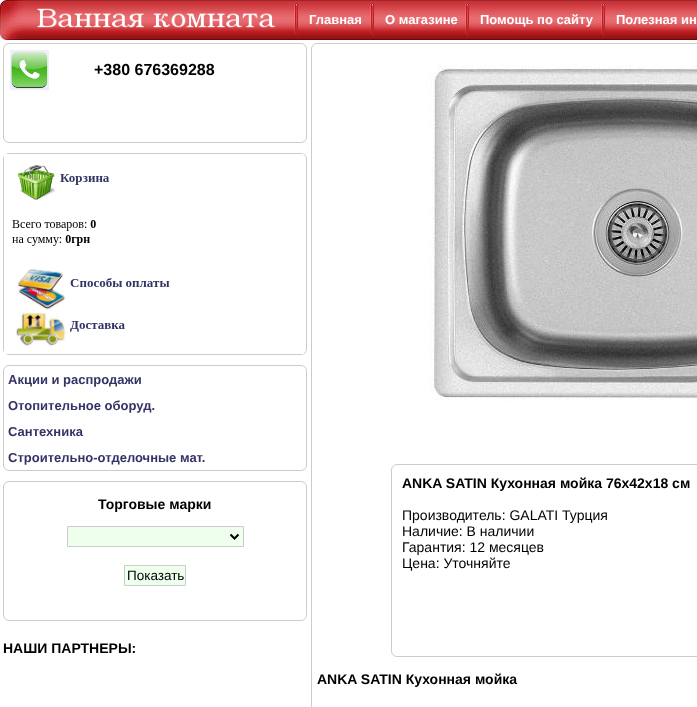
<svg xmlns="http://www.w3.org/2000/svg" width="697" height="707">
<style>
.a{font:bold 13px Liberation Sans;fill:#fff}
.b{font:bold 16px Liberation Sans;fill:#000}
.c{font:bold 13px Liberation Sans;fill:#336}
.d{font:bold 14px Liberation Sans;fill:#000}
.e{font:13.5px Liberation Sans;fill:#000}
.f{font:14px Liberation Sans;fill:#000}
</style>
<rect width="100%" height="100%" fill="#fff"/>
<image href="1.png" x="24" y="0" width="673" height="40"/>
<image href="2.png" x="0" y="0" width="24" height="40"/>
<image href="3.png" x="37" y="8" width="239" height="20"/>
<image href="4.png" x="294" y="0" width="5" height="40"/>
<image href="4.png" x="370" y="0" width="5" height="40"/>
<image href="4.png" x="465" y="0" width="5" height="40"/>
<image href="4.png" x="601" y="0" width="5" height="40"/>
<rect fill="none" stroke="#ccc" x="3.5" y="43.5" width="303" height="99" rx="5.5"/>
<image href="5.png" x="10" y="50" width="39" height="40"/>
<rect fill="none" stroke="#ccc" x="3.5" y="153.5" width="303" height="201" rx="5.5"/>
<image href="6.png" x="4" y="154" width="300" height="200"/>
<rect fill="none" stroke="#ccc" x="3.5" y="365.5" width="303" height="105" rx="5.5"/>
<rect fill="none" stroke="#ccc" x="3.5" y="481.5" width="303" height="139" rx="5.5"/>
<path fill="#efe" stroke="#ccc" d="M67.5 526.5h176v20H67.5z"/>
<path fill="none" stroke="#000" stroke-width="2" d="M230.5 534.5l4 4l4-4"/>
<path fill="#efe" stroke="#ccc" d="M124.5 565.5h61v20H124.5z"/>
<rect fill="none" stroke="#ccc" x="311.5" y="43.5" width="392" height="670" rx="5.5"/>
<image href="7.png" x="429" y="65" width="268" height="336"/>
<rect fill="none" stroke="#ccc" x="391.5" y="464.5" width="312" height="192" rx="5.5"/>
<text class="a" x="309" y="24">Главная</text>
<text class="a" x="385" y="24">О магазине</text>
<text class="a" x="480" y="24">Помощь по сайту</text>
<text class="a" x="616" y="24">Полезная ин</text>
<text class="b" x="94" y="75">+380 676369288</text>
<text class="c" x="8" y="384">Акции и распродажи</text>
<text class="c" x="8" y="410">Отопительное оборуд.</text>
<text class="c" x="8" y="436">Сантехника</text>
<text class="c" x="8" y="462">Строительно-отделочные мат.</text>
<text class="d" x="98" y="509">Торговые марки</text>
<text class="e" x="127" y="580">Показать</text>
<text class="d" x="3" y="653">НАШИ ПАРТНЕРЫ:</text>
<text class="d" x="402" y="488">ANKA SATIN Кухонная мойка 76х42х18 см</text>
<text class="f" x="402" y="520">Производитель: GALATI Турция</text>
<text class="f" x="402" y="536">Наличие: В наличии</text>
<text class="f" x="402" y="552">Гарантия: 12 месяцев</text>
<text class="f" x="402" y="568">Цена: Уточняйте</text>
<text class="d" x="317" y="684">ANKA SATIN Кухонная мойка</text>
</svg>
